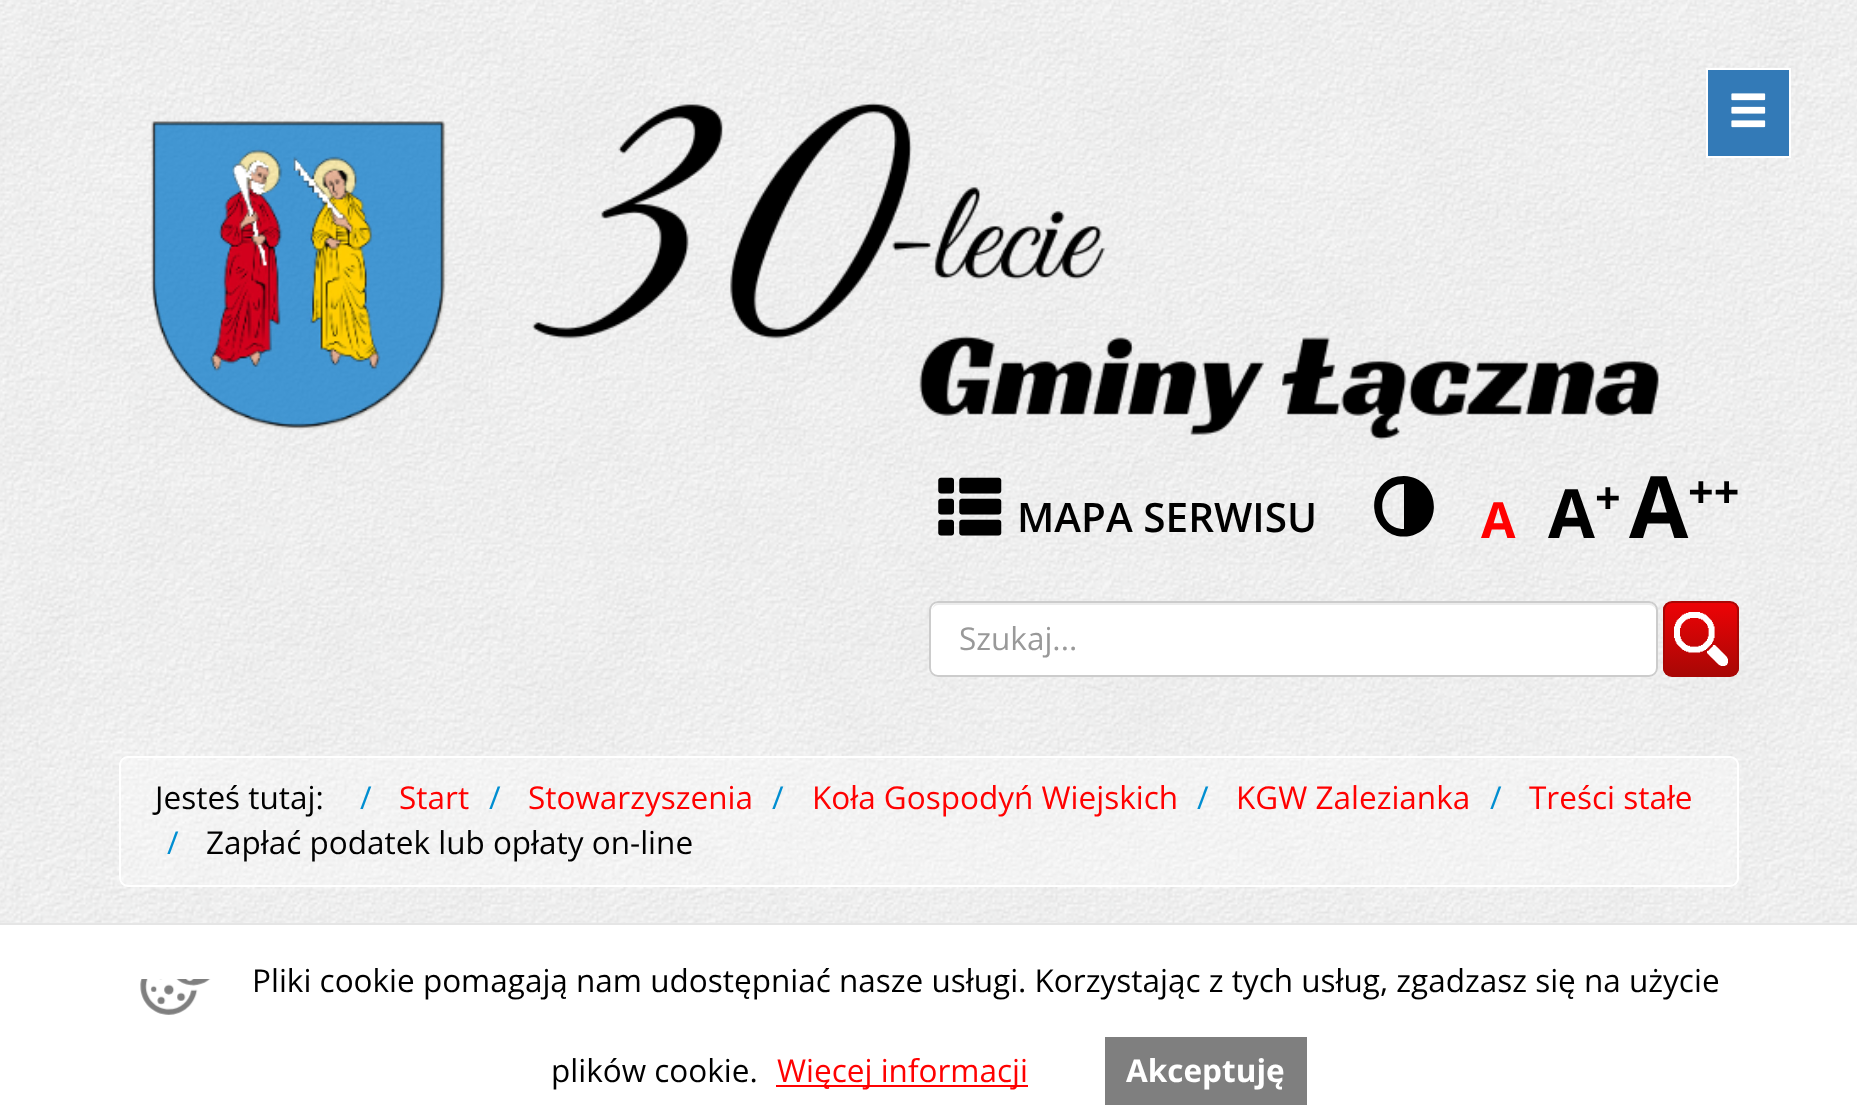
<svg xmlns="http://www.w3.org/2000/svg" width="1857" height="1116">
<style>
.a{font:600 40.5px Open Sans;fill:#000}
.b{font:bold 50px Open Sans;fill:#ff0101}
.c{font:bold 68px Open Sans;fill:#000}
.d{font:bold 45px Open Sans;fill:#000}
.e{font:bold 86px Open Sans;fill:#000}
.f{font:31.5px Open Sans;fill:#999}
.g{font:31.5px Open Sans;fill:#000}
.h{font:31.5px Open Sans;fill:#008ed1}
.i{font:31.5px Open Sans;fill:#ff0101}
.j{font:bold 31.5px Open Sans;fill:#fff}
</style>
<defs>
<clipPath id="clip1"><rect x="1663" y="601" width="76" height="76" rx="9"/></clipPath>
<linearGradient id="g1" gradientUnits="userSpaceOnUse" x1="1701" y1="603" x2="1701" y2="675"><stop offset="0" stop-color="#ed0306"/><stop offset="1" stop-color="#a90705"/></linearGradient>
</defs>
<rect width="100%" height="100%" fill="#fff"/>
<image href="1.png" x="0" y="0" width="1857" height="923"/>
<path fill="#337ab7" stroke="#fff" stroke-width="2" d="M1707 69h83v88H1707z"/>
<image href="2.png" x="1731" y="93" width="35" height="35"/>
<image href="3.png" x="151" y="102" width="1508" height="338"/>
<image href="4.png" x="938" y="477" width="64" height="59"/>
<path fill="#000" d="M1392 478c6-2 13-3 19-1c28 7 31 46 5 57c-6 3-13 3-19 2c-28-8-31-46-5-58zm12 51v-45c-29 0-29 45 0 45z"/>
<rect fill="#fff" x="929" y="601" width="729" height="76" rx="9"/>
<path fill="#ececec" d="M938 605h711c4 0 7 3 7 7c0-4-2-9-7-9h-710c-5 0-7 5-7 9c0-4 3-7 6-7z"/>
<rect fill="none" stroke="#ccc" stroke-width="2" x="930" y="602" width="727" height="74" rx="8"/>
<g clip-path="url(#clip1)">
<path fill="url(#g1)" d="M1663 603h76v72H1663z"/>
</g>
<rect fill="none" stroke="#a90705" stroke-width="2" x="1664" y="602" width="74" height="74" rx="8"/>
<image href="5.png" x="1674" y="612" width="54" height="54"/>
<image href="6.png" x="119" y="756" width="1620" height="130"/>
<rect fill="none" stroke="#fff" stroke-width="2" x="120" y="757" width="1618" height="129" rx="8"/>
<path fill="#e5e5e5" d="M0 923h1857v2H0z"/>
<image href="7.png" x="140" y="979" width="71" height="36"/>
<path fill="#ff0101" d="M776 1085h252v2H776z"/>
<path fill="#7f7f7f" d="M1105 1037h202v68H1105z"/>
<text class="a" x="1017" y="532">MAPA SERWISU</text>
<text class="b" x="1481" y="538">A</text>
<text class="c" x="1548" y="538">A</text>
<text class="d" x="1595" y="514">+</text>
<text class="e" x="1629" y="538">A</text>
<text class="d" x="1688" y="508">++</text>
<text class="f" x="959" y="650">Szukaj...</text>
<text class="g" x="155" y="809">Jesteś tutaj:</text>
<text class="h" x="360" y="809">/</text>
<text class="i" x="399" y="809">Start</text>
<text class="h" x="489" y="809">/</text>
<text class="i" x="528" y="809">Stowarzyszenia</text>
<text class="h" x="772" y="809">/</text>
<text class="i" x="812" y="809">Koła Gospodyń Wiejskich</text>
<text class="h" x="1197" y="809">/</text>
<text class="i" x="1236" y="809">KGW Zalezianka</text>
<text class="h" x="1490" y="809">/</text>
<text class="i" x="1529" y="809">Treści stałe</text>
<text class="h" x="167" y="854">/</text>
<text class="g" x="206" y="854">Zapłać podatek lub opłaty on-line</text>
<text class="g" x="252" y="992">Pliki cookie pomagają nam udostępniać nasze usługi. Korzystając z tych usług, zgadzasz się na użycie</text>
<text class="g" x="551" y="1082">plików cookie.</text>
<text class="i" x="777" y="1082">Więcej informacji</text>
<text class="j" x="1126" y="1082">Akceptuję</text>
</svg>
